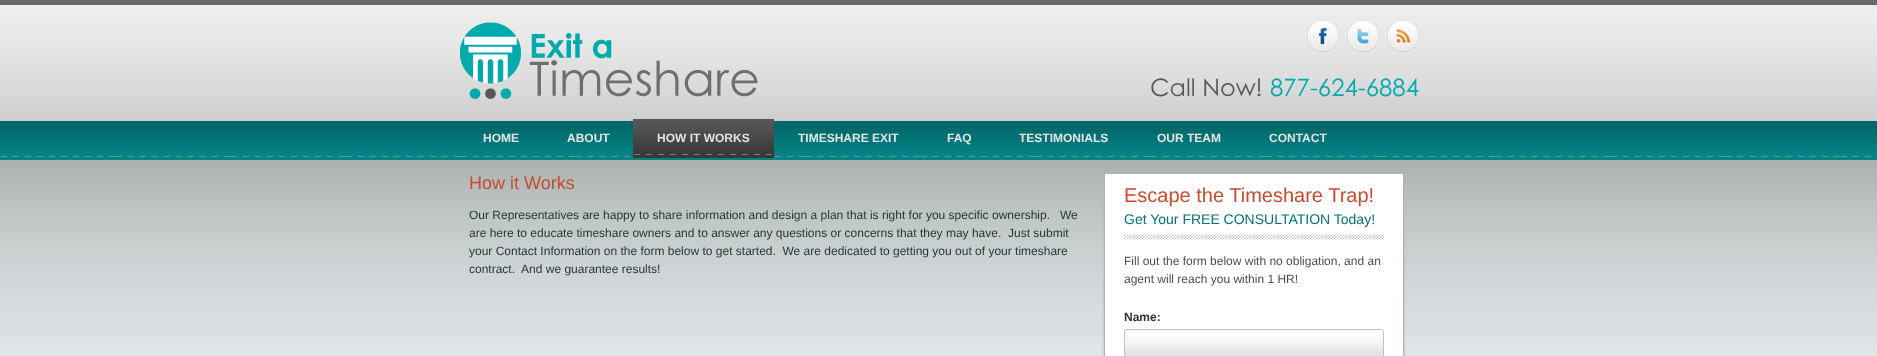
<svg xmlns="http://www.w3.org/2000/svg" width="1877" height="356">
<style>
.a{font:24px Century Gothic;fill:#58585a}
.b{font:24px Century Gothic;fill:#00aaad}
.c{font:bold 12px Liberation Sans;fill:#e3e3e3}
.d{font:18px Liberation Sans;fill:#c84b2d}
.e{font:12px Liberation Sans;fill:#1d3632}
.f{font:20px Liberation Sans;fill:#c84b2d}
.g{font:14px Liberation Sans;fill:#017373}
.h{font:12px Liberation Sans;fill:#4d4d4d}
.i{font:bold 12px Liberation Sans;fill:#333}
</style>
<rect width="100%" height="100%" fill="#dfe5e6"/>
<image href="1.png" x="0" y="0" width="1877" height="337"/>
<image href="2.png" x="459" y="22" width="299" height="77"/>
<image href="3.png" x="1307" y="20" width="32" height="32"/>
<image href="4.png" x="1347" y="20" width="32" height="32"/>
<image href="5.png" x="1387" y="20" width="32" height="32"/>
<image href="6.png" x="633" y="119" width="141" height="39"/>
<path fill="#b4b4b4" filter="blur(1.5px)" d="M1104 173h300v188H1104z"/>
<path fill="#fff" stroke="#b4b4b4" d="M1104.5 173.5h299v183H1104.5z"/>
<image href="7.png" x="1124" y="234" width="260" height="6"/>
<image href="8.png" x="1124" y="329" width="260" height="27"/>
<text class="a" x="1150" y="96">Call Now!</text>
<text class="b" x="1270" y="96">877-624-6884</text>
<text class="c" x="483" y="142">HOME</text>
<text class="c" x="567" y="142">ABOUT</text>
<text class="c" x="657" y="142">HOW IT WORKS</text>
<text class="c" x="798" y="142">TIMESHARE EXIT</text>
<text class="c" x="947" y="142">FAQ</text>
<text class="c" x="1019" y="142">TESTIMONIALS</text>
<text class="c" x="1157" y="142">OUR TEAM</text>
<text class="c" x="1269" y="142">CONTACT</text>
<text class="d" x="469" y="189">How it Works</text>
<text class="e" xml:space="preserve" x="469" y="219">Our Representatives are happy to share information and design a plan that is right for you specific ownership.   We</text>
<text class="e" xml:space="preserve" x="469" y="237">are here to educate timeshare owners and to answer any questions or concerns that they may have.  Just submit</text>
<text class="e" xml:space="preserve" x="469" y="255">your Contact Information on the form below to get started.  We are dedicated to getting you out of your timeshare</text>
<text class="e" xml:space="preserve" x="469" y="273">contract.  And we guarantee results!</text>
<text class="f" x="1124" y="202">Escape the Timeshare Trap!</text>
<text class="g" x="1124" y="224">Get Your FREE CONSULTATION Today!</text>
<text class="h" x="1124" y="265">Fill out the form below with no obligation, and an</text>
<text class="h" x="1124" y="283">agent will reach you within 1 HR!</text>
<text class="i" x="1124" y="321">Name:</text>
</svg>
